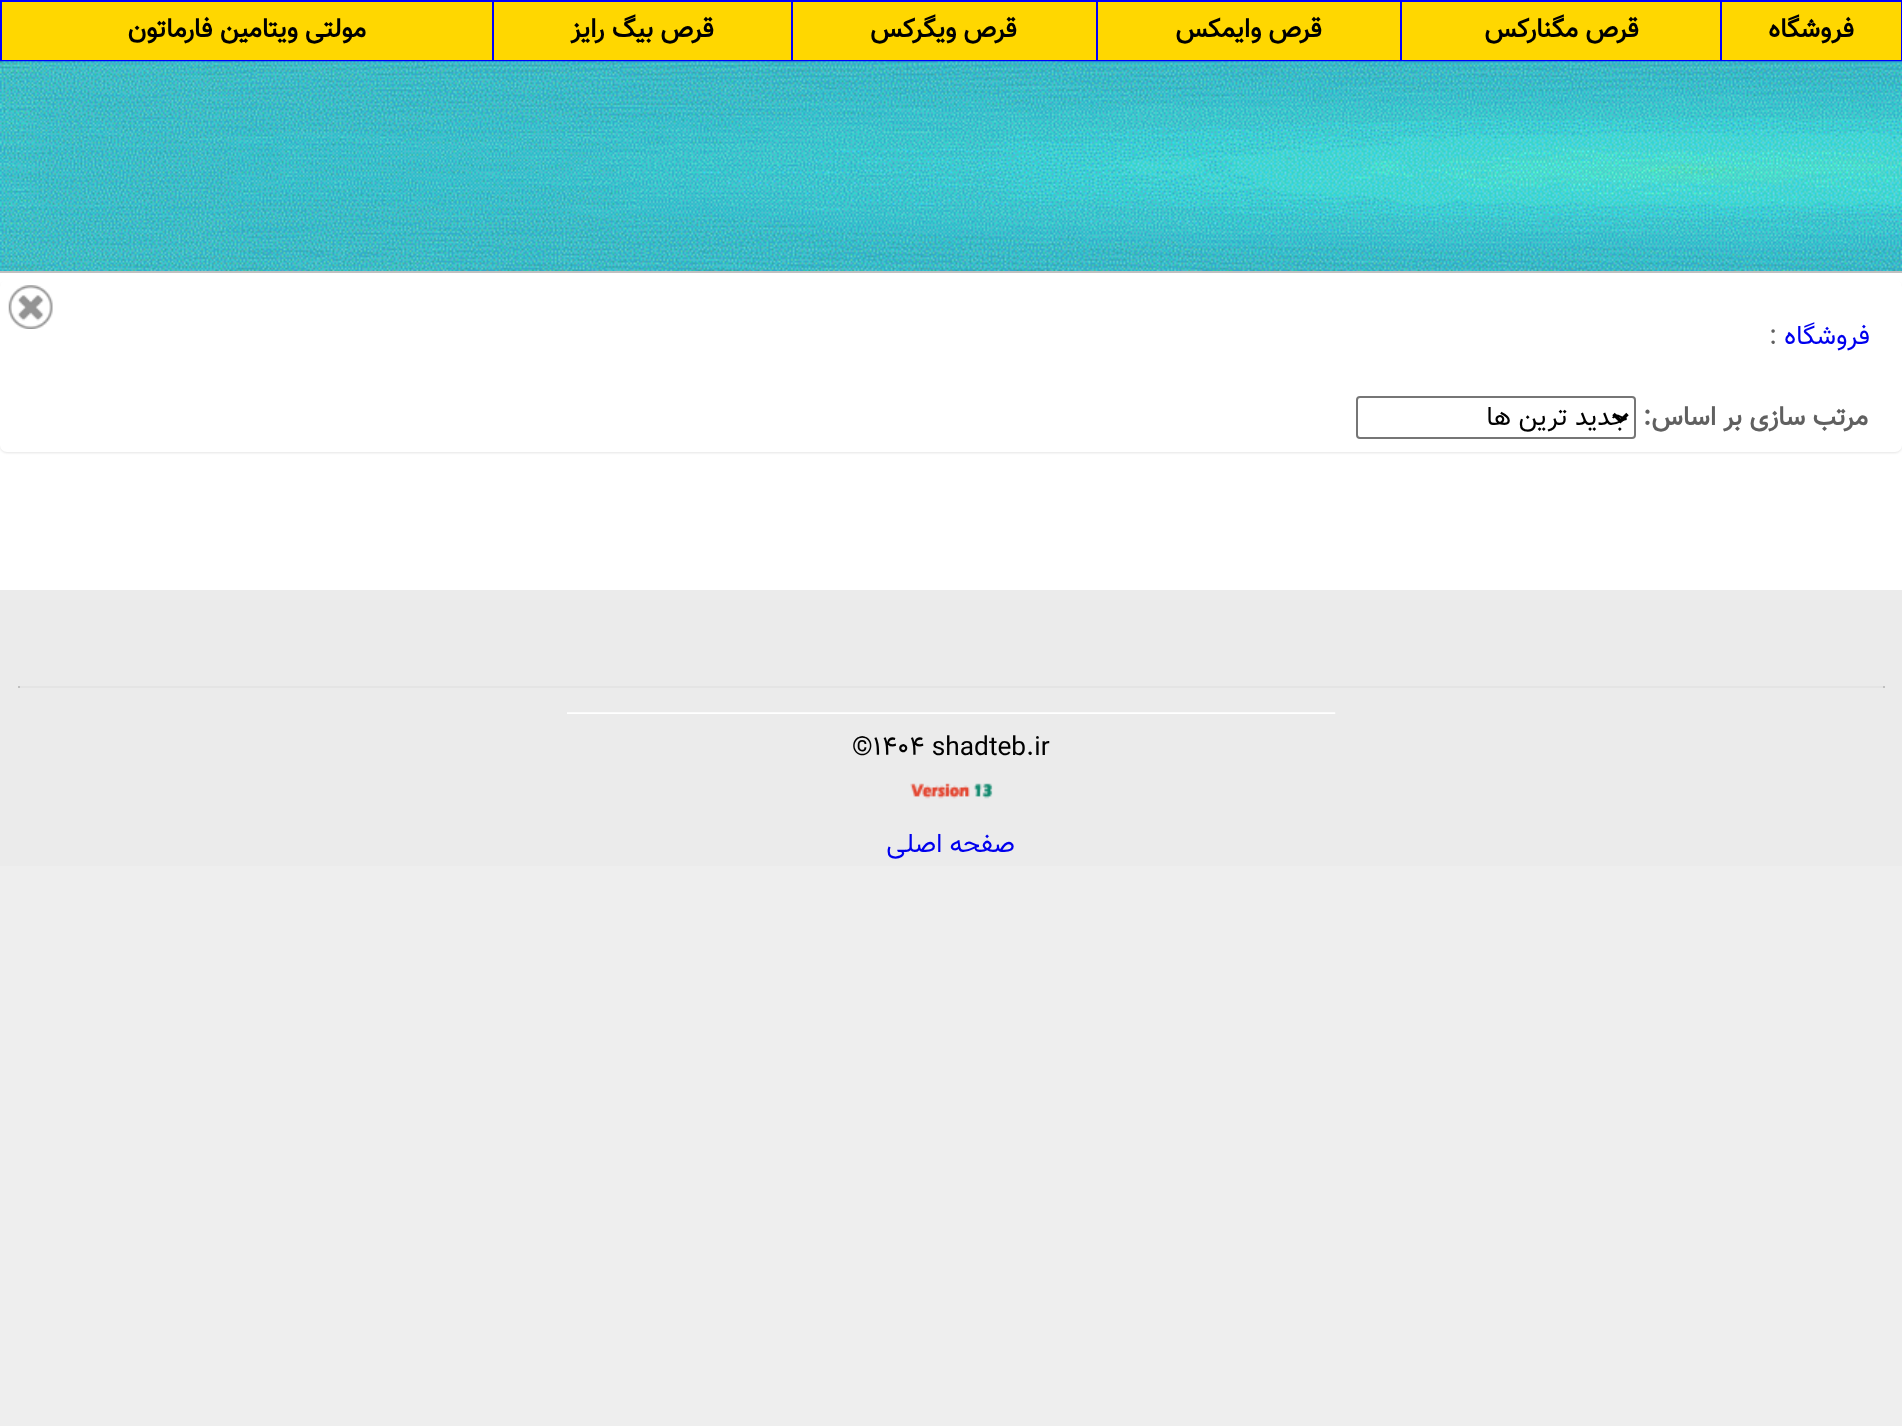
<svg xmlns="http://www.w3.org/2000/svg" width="1902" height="1426">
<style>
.a{font:bold 26.25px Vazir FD;direction:rtl;fill:#000}
.b{font:26.25px Vazir FD;direction:rtl;fill:#00e}
.c{font:26.25px Vazir FD;fill:#606060}
.d{font:bold 26.25px Vazir FD;direction:rtl;fill:#606060}
.e{font:26.25px Vazir FD;direction:rtl;fill:#000}
.f{font:26.25px Vazir FD;fill:#000}
</style>
<rect width="100%" height="100%" fill="#eee"/>
<path fill="#ffd700" d="M2 2h1899v58H2z"/>
<path fill="#00f" d="M0 0h1902v2H0z"/>
<path fill="#00f" d="M1901 0h1v61H1901z"/>
<path fill="#00f" d="M0 60h1902v2H0z"/>
<path fill="#00f" d="M0 0h2v61H0z"/>
<path fill="#00f" d="M1720 0h2v61H1720z"/>
<path fill="#00f" d="M1400 0h2v61H1400z"/>
<path fill="#00f" d="M1096 0h2v61H1096z"/>
<path fill="#00f" d="M791 0h2v61H791z"/>
<path fill="#00f" d="M492 0h2v61H492z"/>
<image href="1.png" x="0" y="61" width="1902" height="210"/>
<path fill="#c0c0c0" d="M0 271h1902v2H0z"/>
<path fill="#ebebeb" d="M0 590h1902v276H0z"/>
<path fill="#fff" d="M0 273h1902v317H0z"/>
<rect fill="#0000001a" filter="blur(1px)" y="282" width="1902" height="171" rx="7"/>
<rect fill="#fff" y="280" width="1902" height="172" rx="7"/>
<image href="2.png" x="8" y="285" width="45" height="44"/>
<rect fill="none" stroke="#767676" stroke-width="2" x="1357" y="397" width="278" height="41" rx="3"/>
<path fill="none" stroke="#000" stroke-width="3.5" d="M1613.5 414l7 7l7-7"/>
<path fill="#e4e4e4" d="M18 686h1867v2H18z"/>
<path fill="#c0c0c0" d="M1883 686h2v2H1883z"/>
<path fill="#c0c0c0" d="M18 686h2v2H18z"/>
<image href="3.png" x="567" y="712" width="769" height="2"/>
<image href="4.png" x="910" y="783" width="83" height="16"/>
<text class="a" x="1854" y="37">فروشگاه</text>
<text class="a" x="1639" y="37">قرص مگنارکس</text>
<text class="a" x="1322" y="37">قرص وایمکس</text>
<text class="a" x="1017" y="37">قرص ویگرکس</text>
<text class="a" x="714" y="37">قرص بيگ رايز</text>
<text class="a" x="366" y="37">مولتی ویتامین فارماتون</text>
<text class="b" x="1870" y="344">فروشگاه</text>
<text class="c" x="1769" y="344">:</text>
<text class="d" x="1868" y="425">مرتب سازی بر اساس:</text>
<text class="e" x="1628" y="425">جدید ترین ها</text>
<text class="f" x="852" y="755">©1404 shadteb.ir</text>
<text class="b" x="1015" y="852">صفحه اصلی</text>
</svg>
